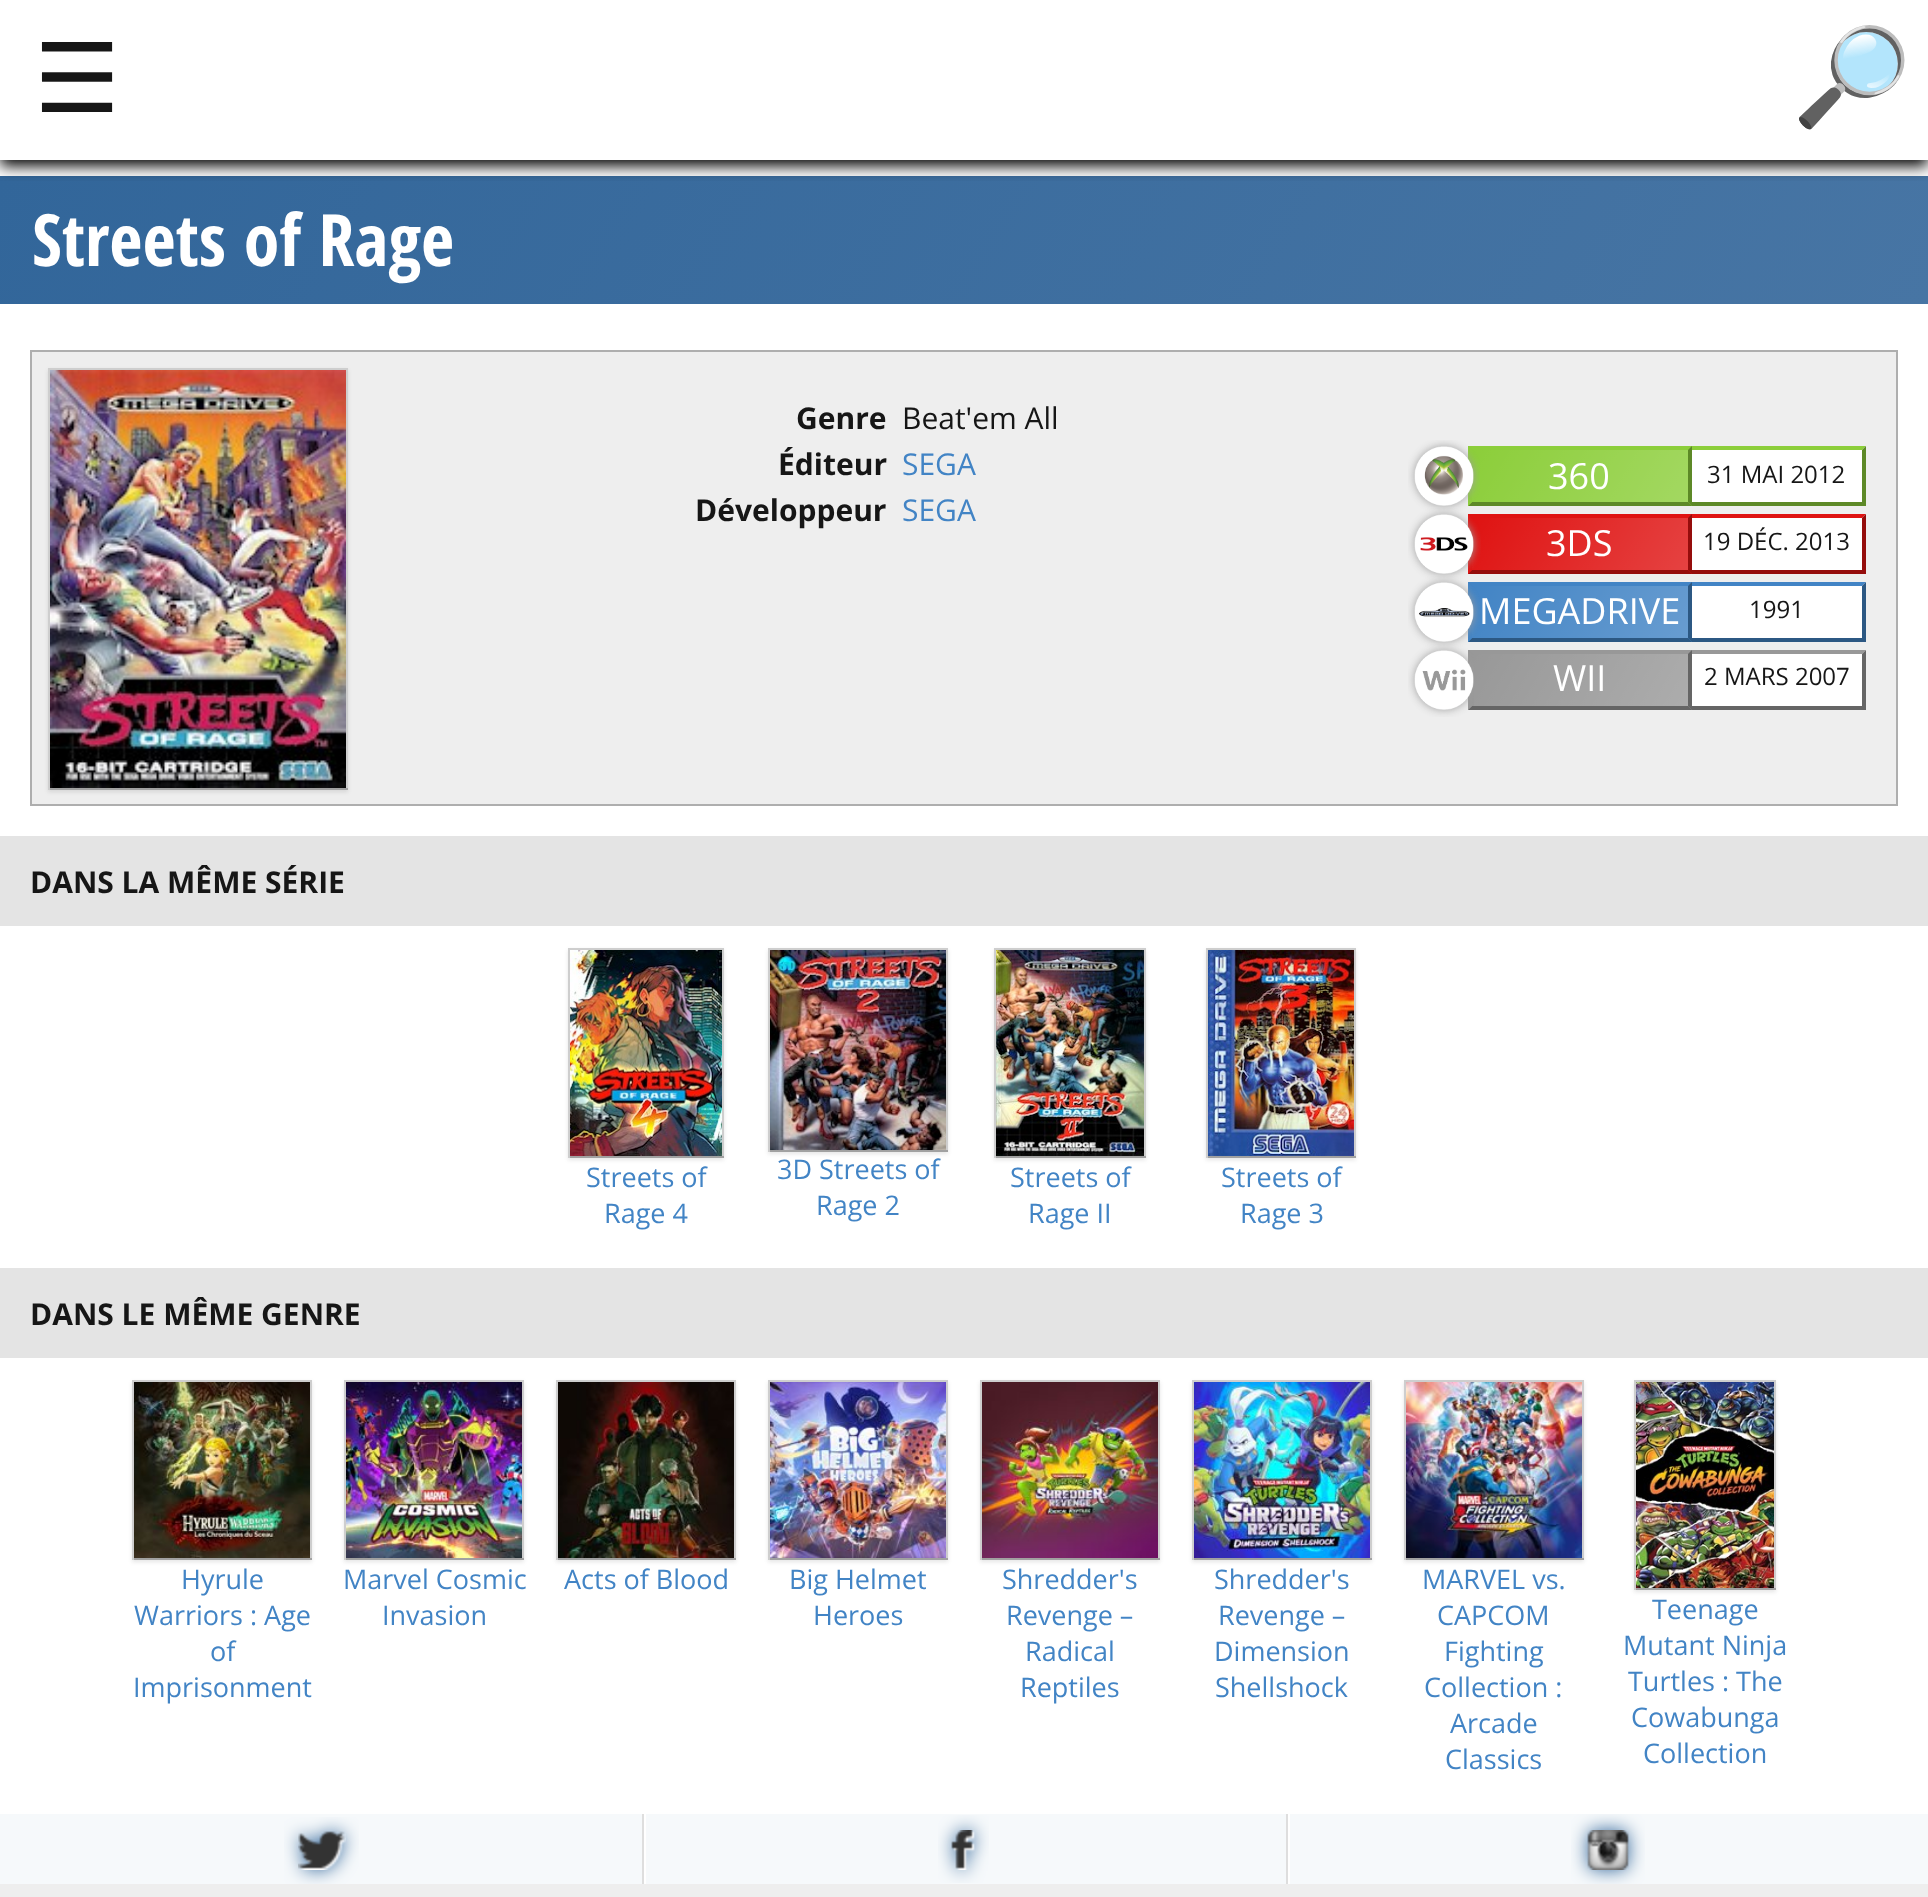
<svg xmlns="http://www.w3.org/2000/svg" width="1928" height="1897">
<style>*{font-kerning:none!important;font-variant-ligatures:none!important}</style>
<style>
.a{font:96px DejaVu Sans;fill:#161616}
.b{font:96px Noto Color Emoji;fill:#161616}
.c{font:bold 72px Open Sans Condensed;fill:#fff}
.d{font:bold 30px Open Sans;fill:#161616}
.e{font:30px Open Sans;fill:#161616}
.f{font:30px Open Sans;fill:#4284c5}
.g{font:36px Open Sans;fill:#fff}
.h{font:24px Open Sans;fill:#161616}
.i{font:27px Open Sans;fill:#4284c5}
</style>
<defs>
<linearGradient id="g1" gradientUnits="userSpaceOnUse" x1="213" y1="-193" x2="1715" y2="673"><stop offset="0" stop-color="#32669a"/><stop offset="1" stop-color="#4775a4"/></linearGradient>
<clipPath id="clip1"><path d="M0 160h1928v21H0z"/></clipPath>
<linearGradient id="g2" gradientUnits="userSpaceOnUse" x1="1488" y1="423" x2="1672" y2="529"><stop offset="0" stop-color="#fff" stop-opacity="0"/><stop offset="1" stop-color="#fff" stop-opacity="0.2"/></linearGradient>
<linearGradient id="g3" gradientUnits="userSpaceOnUse" x1="1488" y1="491" x2="1672" y2="597"><stop offset="0" stop-color="#fff" stop-opacity="0"/><stop offset="1" stop-color="#fff" stop-opacity="0.2"/></linearGradient>
<linearGradient id="g4" gradientUnits="userSpaceOnUse" x1="1488" y1="559" x2="1672" y2="665"><stop offset="0" stop-color="#fff" stop-opacity="0"/><stop offset="1" stop-color="#fff" stop-opacity="0.2"/></linearGradient>
<linearGradient id="g5" gradientUnits="userSpaceOnUse" x1="1488" y1="627" x2="1672" y2="733"><stop offset="0" stop-color="#fff" stop-opacity="0"/><stop offset="1" stop-color="#fff" stop-opacity="0.2"/></linearGradient>
</defs>
<rect width="100%" height="100%" fill="#fff"/>
<path fill="url(#g1)" d="M0 176h1928v128H0z"/>
<g clip-path="url(#clip1)">
<path fill="#000" filter="blur(7.5px)" d="M0 6h1928v160H0z"/>
</g>
<path fill="#eee" stroke="#aeaeae" stroke-width="2" d="M31 351h1866v454H31z"/>
<path fill="#0000001a" filter="blur(2px)" d="M48 370h300v422H48z"/>
<path fill="#cecece" d="M48 368h300v2H48z"/>
<path fill="#cecece" d="M346 368h2v422H346z"/>
<path fill="#a1a1a1" d="M48 788h300v2H48z"/>
<path fill="#cecece" d="M48 368h2v422H48z"/>
<image href="1.png" x="50" y="370" width="296" height="418"/>
<path fill="#8cce3a" d="M1468 446h224v60H1468z"/>
<path fill="#5d8927" d="M1692 446v60l-4-4v-52z"/>
<path fill="#5d8927" d="M1692 506h-224l4-4h216z"/>
<path fill="#8cce3a" d="M1468 506v-60l4 4v52z"/>
<path fill="url(#g2)" d="M1472 450h216v52H1472z"/>
<image href="2.png" x="1408" y="440" width="72" height="73"/>
<path fill="#fff" d="M1692 446h174v56H1692z"/>
<path fill="#8cce3a" d="M1692 446h174l-4 4h-170z"/>
<path fill="#5d8927" d="M1866 446v60l-4-4v-52z"/>
<path fill="#5d8927" d="M1692 502h174v4H1692z"/>
<path fill="#df1312" d="M1468 514h224v60H1468z"/>
<path fill="#950d0c" d="M1692 514v60l-4-4v-52z"/>
<path fill="#950d0c" d="M1692 574h-224l4-4h216z"/>
<path fill="#df1312" d="M1468 574v-60l4 4v52z"/>
<path fill="url(#g3)" d="M1472 518h216v52H1472z"/>
<image href="3.png" x="1408" y="508" width="73" height="73"/>
<path fill="#fff" d="M1692 514h174v56H1692z"/>
<path fill="#df1312" d="M1692 514h174l-4 4h-170z"/>
<path fill="#950d0c" d="M1866 514v60l-4-4v-52z"/>
<path fill="#950d0c" d="M1692 570h174v4H1692z"/>
<path fill="#4284c5" d="M1468 582h224v60H1468z"/>
<path fill="#2c5883" d="M1692 582v60l-4-4v-52z"/>
<path fill="#2c5883" d="M1692 642h-224l4-4h216z"/>
<path fill="#4284c5" d="M1468 642v-60l4 4v52z"/>
<path fill="url(#g4)" d="M1472 586h216v52H1472z"/>
<image href="4.png" x="1408" y="576" width="72" height="73"/>
<path fill="#fff" d="M1692 582h174v56H1692z"/>
<path fill="#4284c5" d="M1692 582h174l-4 4h-170z"/>
<path fill="#2c5883" d="M1866 582v60l-4-4v-52z"/>
<path fill="#2c5883" d="M1692 638h174v4H1692z"/>
<path fill="#989898" d="M1468 650h224v60H1468z"/>
<path fill="#656565" d="M1692 650v60l-4-4v-52z"/>
<path fill="#656565" d="M1692 710h-224l4-4h216z"/>
<path fill="#989898" d="M1468 710v-60l4 4v52z"/>
<image href="5.png" x="1408" y="644" width="66" height="73"/>
<path fill="url(#g5)" d="M1474 654h214v52H1474z"/>
<path fill="#fff" d="M1692 650h174v56H1692z"/>
<path fill="#989898" d="M1692 650h174l-4 4h-170z"/>
<path fill="#656565" d="M1866 650v60l-4-4v-52z"/>
<path fill="#656565" d="M1692 706h174v4H1692z"/>
<path fill="#e4e4e4" d="M0 836h1928v90H0z"/>
<path fill="#0000001a" filter="blur(2px)" d="M568 950h156v210H568z"/>
<path fill="#cecece" d="M568 948h156v2H568z"/>
<path fill="#cecece" d="M722 948h2v210H722z"/>
<path fill="#a1a1a1" d="M568 1156h156v2H568z"/>
<path fill="#cecece" d="M568 948h2v210H568z"/>
<image href="6.png" x="570" y="950" width="152" height="206"/>
<path fill="#0000001a" filter="blur(2px)" d="M768 950h180v204H768z"/>
<path fill="#cecece" d="M768 948h180v2H768z"/>
<path fill="#cecece" d="M946 948h2v204H946z"/>
<path fill="#a1a1a1" d="M768 1150h180v2H768z"/>
<path fill="#cecece" d="M768 948h2v204H768z"/>
<image href="7.png" x="770" y="950" width="176" height="200"/>
<path fill="#0000001a" filter="blur(2px)" d="M994 950h152v210H994z"/>
<path fill="#cecece" d="M994 948h152v2H994z"/>
<path fill="#cecece" d="M1144 948h2v210H1144z"/>
<path fill="#a1a1a1" d="M994 1156h152v2H994z"/>
<path fill="#cecece" d="M994 948h2v210H994z"/>
<image href="8.png" x="996" y="950" width="148" height="206"/>
<path fill="#0000001a" filter="blur(2px)" d="M1206 950h150v210H1206z"/>
<path fill="#cecece" d="M1206 948h150v2H1206z"/>
<path fill="#cecece" d="M1354 948h2v210H1354z"/>
<path fill="#a1a1a1" d="M1206 1156h150v2H1206z"/>
<path fill="#cecece" d="M1206 948h2v210H1206z"/>
<image href="9.png" x="1208" y="950" width="146" height="206"/>
<path fill="#e4e4e4" d="M0 1268h1928v90H0z"/>
<path fill="#0000001a" filter="blur(2px)" d="M132 1382h180v180H132z"/>
<path fill="#cecece" d="M132 1380h180v2H132z"/>
<path fill="#cecece" d="M310 1380h2v180H310z"/>
<path fill="#a1a1a1" d="M132 1558h180v2H132z"/>
<path fill="#cecece" d="M132 1380h2v180H132z"/>
<image href="10.png" x="134" y="1382" width="176" height="176"/>
<path fill="#0000001a" filter="blur(2px)" d="M344 1382h180v180H344z"/>
<path fill="#cecece" d="M344 1380h180v2H344z"/>
<path fill="#cecece" d="M522 1380h2v180H522z"/>
<path fill="#a1a1a1" d="M344 1558h180v2H344z"/>
<path fill="#cecece" d="M344 1380h2v180H344z"/>
<image href="11.png" x="346" y="1382" width="176" height="176"/>
<path fill="#0000001a" filter="blur(2px)" d="M556 1382h180v180H556z"/>
<path fill="#cecece" d="M556 1380h180v2H556z"/>
<path fill="#cecece" d="M734 1380h2v180H734z"/>
<path fill="#a1a1a1" d="M556 1558h180v2H556z"/>
<path fill="#cecece" d="M556 1380h2v180H556z"/>
<image href="12.png" x="558" y="1382" width="176" height="176"/>
<path fill="#0000001a" filter="blur(2px)" d="M768 1382h180v180H768z"/>
<path fill="#cecece" d="M768 1380h180v2H768z"/>
<path fill="#cecece" d="M946 1380h2v180H946z"/>
<path fill="#a1a1a1" d="M768 1558h180v2H768z"/>
<path fill="#cecece" d="M768 1380h2v180H768z"/>
<image href="13.png" x="770" y="1382" width="176" height="176"/>
<path fill="#0000001a" filter="blur(2px)" d="M980 1382h180v180H980z"/>
<path fill="#cecece" d="M980 1380h180v2H980z"/>
<path fill="#cecece" d="M1158 1380h2v180H1158z"/>
<path fill="#a1a1a1" d="M980 1558h180v2H980z"/>
<path fill="#cecece" d="M980 1380h2v180H980z"/>
<image href="14.png" x="982" y="1382" width="176" height="176"/>
<path fill="#0000001a" filter="blur(2px)" d="M1192 1382h180v180H1192z"/>
<path fill="#cecece" d="M1192 1380h180v2H1192z"/>
<path fill="#cecece" d="M1370 1380h2v180H1370z"/>
<path fill="#a1a1a1" d="M1192 1558h180v2H1192z"/>
<path fill="#cecece" d="M1192 1380h2v180H1192z"/>
<image href="15.png" x="1194" y="1382" width="176" height="176"/>
<path fill="#0000001a" filter="blur(2px)" d="M1404 1382h180v180H1404z"/>
<path fill="#cecece" d="M1404 1380h180v2H1404z"/>
<path fill="#cecece" d="M1582 1380h2v180H1582z"/>
<path fill="#a1a1a1" d="M1404 1558h180v2H1404z"/>
<path fill="#cecece" d="M1404 1380h2v180H1404z"/>
<image href="16.png" x="1406" y="1382" width="176" height="176"/>
<path fill="#0000001a" filter="blur(2px)" d="M1634 1382h142v210H1634z"/>
<path fill="#cecece" d="M1634 1380h142v2H1634z"/>
<path fill="#cecece" d="M1774 1380h2v210H1774z"/>
<path fill="#a1a1a1" d="M1634 1588h142v2H1634z"/>
<path fill="#cecece" d="M1634 1380h2v210H1634z"/>
<image href="17.png" x="1636" y="1382" width="138" height="206"/>
<path fill="#eee" d="M0 1884h1928v13H0z"/>
<path fill="#f6f9fb" d="M0 1814h1928v70H0z"/>
<image href="18.png" x="284" y="1817" width="75" height="67"/>
<path fill="#fff" d="M644 1814h2v70H644z"/>
<path fill="#dedede" d="M642 1814h2v70H642z"/>
<image href="19.png" x="938" y="1815" width="51" height="68"/>
<path fill="#fff" d="M1288 1814h2v70H1288z"/>
<path fill="#dedede" d="M1286 1814h2v70H1286z"/>
<image href="20.png" x="1571" y="1814" width="74" height="70"/>
<text class="a" x="34" y="112">☰</text>
<text class="b" x="1792" y="110">🔎</text>
<text class="c" x="32" y="266">Streets of Rage</text>
<text class="d" x="796" y="429">Genre</text>
<text class="e" x="902" y="429">Beat'em All</text>
<text class="d" x="778" y="475">Éditeur</text>
<text class="f" x="902" y="475">SEGA</text>
<text class="d" x="695" y="521">Développeur</text>
<text class="f" x="902" y="521">SEGA</text>
<text class="g" x="1548" y="489">360</text>
<text class="h" x="1707" y="483">31 MAI 2012</text>
<text class="g" x="1546" y="556">3DS</text>
<text class="h" x="1703" y="550">19 DÉC. 2013</text>
<text class="g" x="1479" y="624">MEGADRIVE</text>
<text class="h" x="1749" y="618">1991</text>
<text class="g" x="1553" y="691">WII</text>
<text class="h" x="1704" y="685">2 MARS 2007</text>
<text class="d" x="30" y="893">DANS LA MÊME SÉRIE</text>
<text class="i" x="586" y="1187">Streets of</text>
<text class="i" x="604" y="1223">Rage 4</text>
<text class="i" x="777" y="1179">3D Streets of</text>
<text class="i" x="816" y="1215">Rage 2</text>
<text class="i" x="1010" y="1187">Streets of</text>
<text class="i" x="1028" y="1223">Rage II</text>
<text class="i" x="1221" y="1187">Streets of</text>
<text class="i" x="1240" y="1223">Rage 3</text>
<text class="d" x="30" y="1325">DANS LE MÊME GENRE</text>
<text class="i" x="181" y="1589">Hyrule</text>
<text class="i" x="134" y="1625">Warriors : Age</text>
<text class="i" x="210" y="1661">of</text>
<text class="i" x="133" y="1697">Imprisonment</text>
<text class="i" x="343" y="1589">Marvel Cosmic</text>
<text class="i" x="382" y="1625">Invasion</text>
<text class="i" x="564" y="1589">Acts of Blood</text>
<text class="i" x="789" y="1589">Big Helmet</text>
<text class="i" x="813" y="1625">Heroes</text>
<text class="i" x="1002" y="1589">Shredder's</text>
<text class="i" x="1006" y="1625">Revenge –</text>
<text class="i" x="1025" y="1661">Radical</text>
<text class="i" x="1020" y="1697">Reptiles</text>
<text class="i" x="1214" y="1589">Shredder's</text>
<text class="i" x="1218" y="1625">Revenge –</text>
<text class="i" x="1214" y="1661">Dimension</text>
<text class="i" x="1215" y="1697">Shellshock</text>
<text class="i" x="1422" y="1589">MARVEL vs.</text>
<text class="i" x="1437" y="1625">CAPCOM</text>
<text class="i" x="1444" y="1661">Fighting</text>
<text class="i" x="1424" y="1697">Collection :</text>
<text class="i" x="1450" y="1733">Arcade</text>
<text class="i" x="1445" y="1769">Classics</text>
<text class="i" x="1652" y="1619">Teenage</text>
<text class="i" x="1623" y="1655">Mutant Ninja</text>
<text class="i" x="1628" y="1691">Turtles : The</text>
<text class="i" x="1631" y="1727">Cowabunga</text>
<text class="i" x="1643" y="1763">Collection</text>
</svg>
